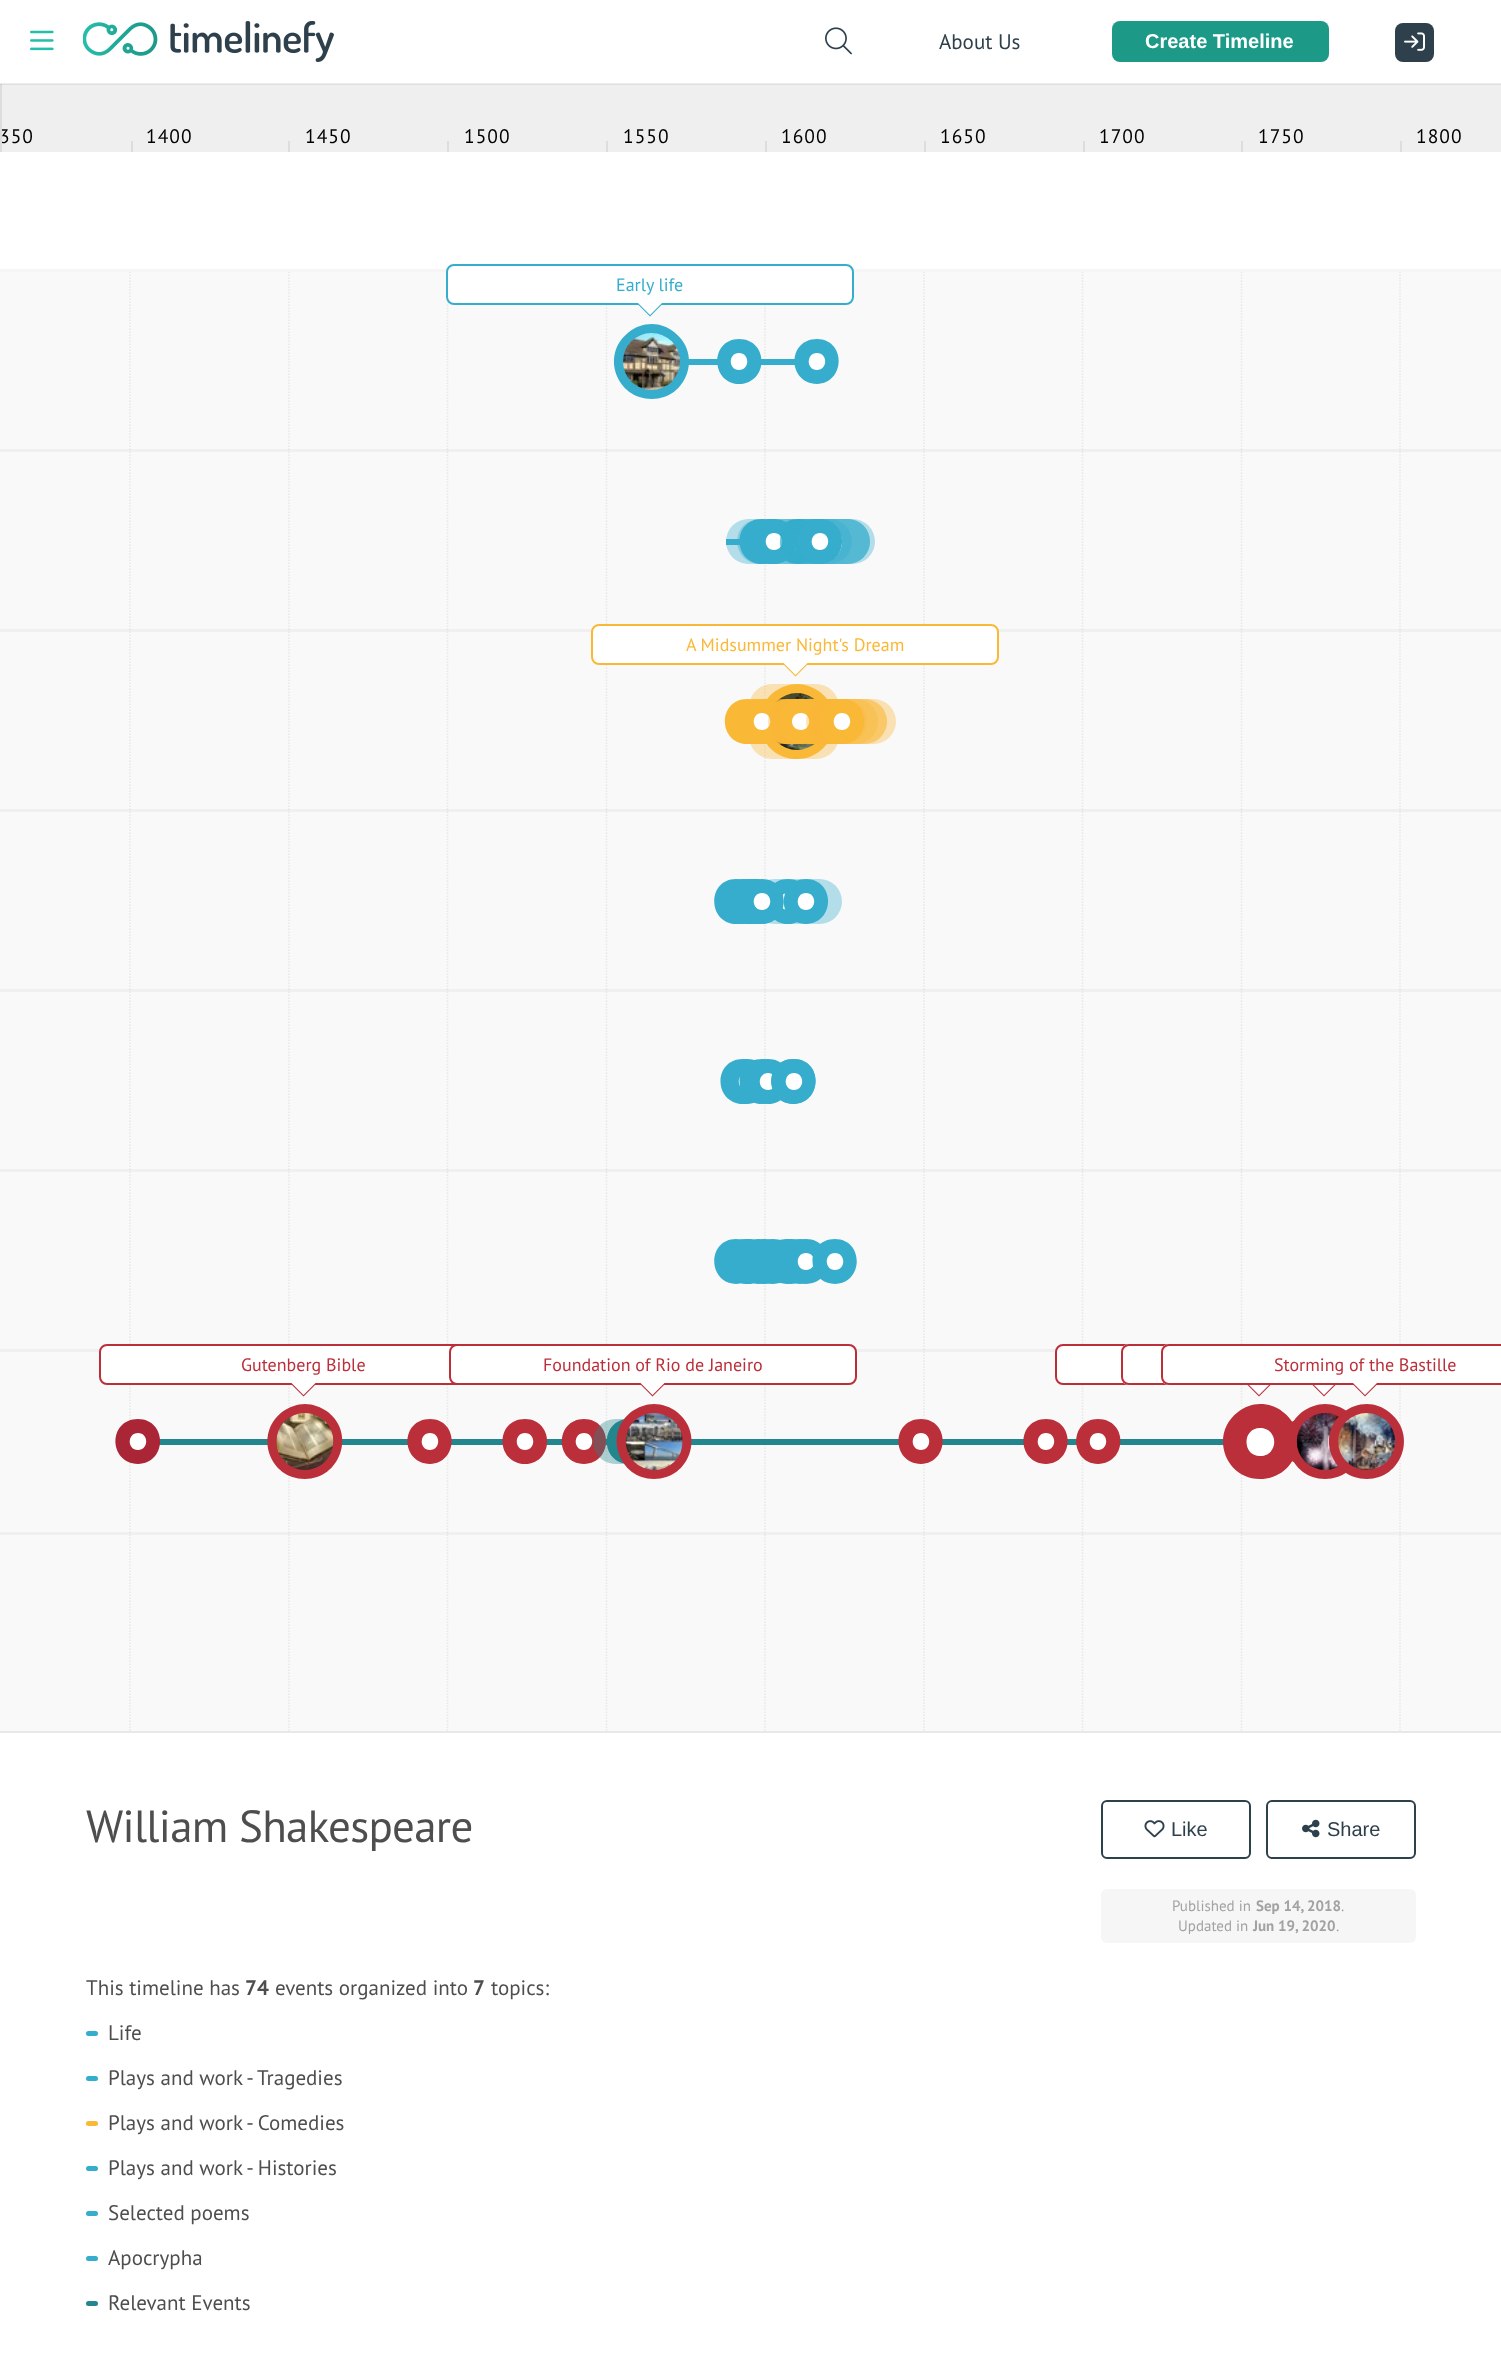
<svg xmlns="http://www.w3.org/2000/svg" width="1501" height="2353">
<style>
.a{font:21px PT Sans;fill:#2d404c}
.b{font:bold 20px Liberation Sans;fill:#fff}
.c{font:19.5px PT Sans;letter-spacing:1px;fill:#000}
.d{font:18px PT Sans;fill:#36adcc}
.e{font:18px PT Sans;fill:#fab837}
.f{font:18px PT Sans;fill:#ba2f39}
.g{font:45px PT Sans;letter-spacing:-0.7px;fill:#4e4e4e}
.h{font:20px Liberation Sans;fill:#2d404c}
.i{font:15px PT Sans;fill:#a2a2a2}
.j{font:bold 15px PT Sans;fill:#a2a2a2}
.k{font:21px PT Sans;fill:#4e4e4e}
.l{font:bold 21px PT Sans;fill:#4e4e4e}
</style>
<defs>
<clipPath id="clip1"><path d="M0 84h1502v1647H0z"/></clipPath>
</defs>
<rect width="100%" height="100%" fill="#fff"/>
<path fill="#ededed" d="M0 83h1501v1H0z"/>
<image href="1.png" x="30" y="30" width="24" height="21"/>
<image href="2.png" x="83" y="21" width="251" height="41"/>
<image href="3.png" x="825" y="27" width="27" height="28"/>
<rect fill="#1d9988" x="1112" y="21" width="217" height="41" rx="8"/>
<rect fill="#2d404c" x="1395" y="23" width="39" height="39" rx="8"/>
<image href="4.png" x="1404" y="32" width="21" height="19"/>
<path fill="#f9f9f9" d="M0 272h1501v1459H0z"/>
<path fill="#e8e8e8" d="M0 1731h1501v2H0z"/>
<path fill="#efefef" d="M2 85h1499v67H2z"/>
<path fill="#dfdfdf" d="M0 84h1501v1H0z"/>
<path fill="#ddd" d="M131 141h2v11H131z"/>
<path fill="#ddd" d="M288 141h2v11H288z"/>
<path fill="#ddd" d="M447 141h2v11H447z"/>
<path fill="#ddd" d="M606 141h2v11H606z"/>
<path fill="#ddd" d="M765 141h2v11H765z"/>
<path fill="#ddd" d="M924 141h2v11H924z"/>
<path fill="#ddd" d="M1083 141h2v11H1083z"/>
<path fill="#ddd" d="M1241 141h2v11H1241z"/>
<path fill="#ddd" d="M1400 141h2v11H1400z"/>
<g clip-path="url(#clip1)">
<path fill="none" stroke="#e8e8e8" stroke-width="1.5" stroke-dasharray="1.5 1.5" d="M130 184.5v1573.5"/>
<path fill="none" stroke="#e8e8e8" stroke-width="1.5" stroke-dasharray="1.5 1.5" d="M289 184.5v1573.5"/>
<path fill="none" stroke="#e8e8e8" stroke-width="1.5" stroke-dasharray="1.5 1.5" d="M447.5 184.5v1573.5"/>
<path fill="none" stroke="#e8e8e8" stroke-width="1.5" stroke-dasharray="1.5 1.5" d="M606.5 184.5v1573.5"/>
<path fill="none" stroke="#e8e8e8" stroke-width="1.5" stroke-dasharray="1.5 1.5" d="M765 184.5v1573.5"/>
<path fill="none" stroke="#e8e8e8" stroke-width="1.5" stroke-dasharray="1.5 1.5" d="M924 184.5v1573.5"/>
<path fill="none" stroke="#e8e8e8" stroke-width="1.5" stroke-dasharray="1.5 1.5" d="M1082.5 184.5v1573.5"/>
<path fill="none" stroke="#e8e8e8" stroke-width="1.5" stroke-dasharray="1.5 1.5" d="M1241.5 184.5v1573.5"/>
<path fill="none" stroke="#e8e8e8" stroke-width="1.5" stroke-dasharray="1.5 1.5" d="M1400 184.5v1573.5"/>
</g>
<path fill="#fff" d="M129 184h1272v85H129z"/>
<path fill="#f6f6f6" d="M0 269v3h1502v177v-180z"/>
<rect fill="#fff" stroke="#36adcc" stroke-width="2" x="447" y="265" width="406" height="39" rx="7"/>
<path fill="#36adcc" d="M636.5 303h27l-13.5 13.5z"/>
<path fill="#fff" d="M636.5 301.5h27l-13.5 13.5z"/>
<path fill="#36adcc" d="M688 359h107v6H688z"/>
<path fill="#36adcc" d="M652 399c35 0 51-45 22-67c-6-5-14-8-22-8c-9 0-17 3-23 8c-29 22-13 67 23 67zm0-51c18 0 18 28 0 28c-19 0-19-28 0-28z"/>
<image href="5.png" x="623" y="333" width="57" height="57"/>
<circle fill="#fff" cx="740" cy="362" r="21"/>
<path fill="#36adcc" d="M739 384c30-1 30-45 0-45c-29 0-29 44 0 45zm0-31c11 0 11 17 0 17c-11 0-11-17 0-17z"/>
<circle fill="#fff" cx="816" cy="362" r="21"/>
<path fill="#36adcc" d="M817 384c29-1 29-45 0-45c-30 0-30 44 0 45zm0-31c11 0 11 17 0 17c-11 0-11-17 0-17z"/>
<path fill="#4e4e4e0d" d="M0 449v3h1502v177v-180z"/>
<path fill="#36adcc" d="M726 539h14v6H726z"/>
<rect fill="#36adcc5c" x="726" y="519" width="90" height="45" rx="22.5"/>
<rect fill="#36adcc5c" x="737" y="519" width="90" height="45" rx="22.5"/>
<rect fill="#36adcc5c" x="762" y="519" width="90" height="45" rx="22.5"/>
<circle fill="#fff" cx="798" cy="542" r="21"/>
<path fill="#36adcc" d="M798 564c29-1 29-45 0-45c-30 0-30 44 0 45zm0-31c11 0 11 17 0 17c-11 0-11-17 0-17z"/>
<path fill="#36adcc" d="M762 564c29-1 29-45 0-45c-30 0-30 44 0 45zm0-31c11 0 11 17 0 17c-11 0-11-17 0-17z"/>
<path fill="#36adcc" d="M771 564c30-1 30-45 0-45c-29 0-30 44 0 45zm0-31c11 0 11 17 0 17c-11 0-11-17 0-17z"/>
<circle fill="#fff" cx="774" cy="542" r="21"/>
<path fill="#36adcc" d="M774 564c30-1 30-45 0-45c-29 0-29 44 0 45zm0-31c11 0 11 17 0 17c-11 0-11-17 0-17z"/>
<rect fill="#36adcc5c" x="780" y="519" width="90" height="45" rx="22.5"/>
<rect fill="#36adcc5c" x="780" y="519" width="90" height="45" rx="22.5"/>
<rect fill="#36adcc5c" x="780" y="519" width="90" height="45" rx="22.5"/>
<path fill="#36adcc" d="M817 564c29-1 29-45 0-45c-30 0-30 44 0 45zm0-31c11 0 11 17 0 17c-11 0-11-17 0-17z"/>
<rect fill="#36adcc5c" x="785" y="519" width="90" height="45" rx="22.5"/>
<circle fill="#fff" cx="821" cy="542" r="21"/>
<path fill="#36adcc" d="M820 564c30-1 29-45 0-45c-30 0-30 44 0 45zm0-31c11 0 11 17 0 17c-11 0-11-17 0-17z"/>
<path fill="#4e4e4e0d" d="M0 629v3h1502v177v-180z"/>
<rect fill="#fff" stroke="#fab837" stroke-width="2" x="592" y="625" width="406" height="39" rx="7"/>
<path fill="#fab837" d="M782 663h27l-13.5 13.5z"/>
<path fill="#fff" d="M782 661.5h27l-13.5 13.5z"/>
<path fill="#fab837" d="M766 744c30-1 29-45 0-45c-29 0-30 44 0 45zm0-31c11 0 11 17 0 17c-11 0-11-17 0-17z"/>
<rect fill="#fab8375c" x="734" y="699" width="90" height="45" rx="22.5"/>
<path fill="#fab837" d="M747 744c30-1 30-45 0-45c-29 0-30 44 0 45zm0-31c11 0 11 17 0 17c-11 0-11-17 0-17z"/>
<rect fill="#fab8375c" x="749" y="684" width="90" height="75" rx="23"/>
<path fill="#fab837" d="M797 759c35 0 51-45 23-67c-7-5-15-8-23-8c-8 0-16 3-23 8c-28 22-13 67 23 67zm0-51c18 0 18 28 0 28c-18 0-18-28 0-28z"/>
<image href="6.png" x="774" y="693" width="42" height="57"/>
<rect fill="#fab8375c" x="752" y="699" width="90" height="45" rx="22.5"/>
<path fill="#fab837" d="M788 744c30-1 29-45 0-45c-29 0-30 44 0 45zm0-31c11 0 11 17 0 17c-11 0-11-17 0-17z"/>
<path fill="#fab837" d="M755 744c30-1 30-45 0-45c-29 0-29 44 0 45zm0-31c11 0 11 17 0 17c-11 0-11-17 0-17z"/>
<rect fill="#fab8375c" x="759" y="699" width="90" height="45" rx="22.5"/>
<path fill="#fab837" d="M794 744c30-1 30-45 0-45c-29 0-29 44 0 45zm0-31c12 0 12 17 0 17c-11 0-11-17 0-17z"/>
<circle fill="#fff" cx="762" cy="722" r="21"/>
<path fill="#fab837" d="M762 744c29-1 29-45 0-45c-30 0-30 44 0 45zm0-31c11 0 11 17 0 17c-11 0-11-17 0-17z"/>
<rect fill="#fab8375c" x="768" y="699" width="90" height="45" rx="22.5"/>
<rect fill="#fab8375c" x="774" y="699" width="90" height="45" rx="22.5"/>
<path fill="#fab837" d="M810 744c30-1 30-45 0-45c-29 0-29 44 0 45zm0-31c11 0 11 17 0 17c-11 0-11-17 0-17z"/>
<rect fill="#fab8375c" x="777" y="699" width="90" height="45" rx="22.5"/>
<path fill="#fab837" d="M814 744c29-1 29-45 0-45c-30 0-30 44 0 45zm0-31c11 0 11 17 0 17c-12 0-12-17 0-17z"/>
<rect fill="#fab8375c" x="788" y="699" width="90" height="45" rx="22.5"/>
<path fill="#fab837" d="M823 744c30-1 29-45 0-45c-29 0-30 44 0 45zm0-31c11 0 11 17 0 17c-11 0-11-17 0-17z"/>
<rect fill="#fab8375c" x="797" y="699" width="90" height="45" rx="22.5"/>
<rect fill="#fab8375c" x="797" y="699" width="90" height="45" rx="22.5"/>
<path fill="#fab837" d="M833 744c29-1 29-45 0-45c-30 0-30 44 0 45zm0-31c11 0 11 17 0 17c-11 0-11-17 0-17z"/>
<circle fill="#fff" cx="801" cy="722" r="21"/>
<path fill="#fab837" d="M801 744c29-1 29-45 0-45c-30 0-30 44 0 45zm0-31c11 0 11 17 0 17c-12 0-12-17 0-17z"/>
<rect fill="#fab8375c" x="806" y="699" width="90" height="45" rx="22.5"/>
<circle fill="#fff" cx="842" cy="722" r="21"/>
<path fill="#fab837" d="M842 744c30-1 29-45 0-45c-29 0-30 44 0 45zm0-31c11 0 11 17 0 17c-11 0-11-17 0-17z"/>
<path fill="#4e4e4e0d" d="M0 809v3h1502v177v-180z"/>
<path fill="#36adcc" d="M736 924c30-1 30-45 0-45c-29 0-29 44 0 45zm0-31c11 0 11 17 0 17c-11 0-11-17 0-17z"/>
<path fill="#36adcc" d="M743 924c29-1 29-45 0-45c-30 0-30 44 0 45zm0-31c11 0 11 17 0 17c-11 0-11-17 0-17z"/>
<path fill="#36adcc" d="M749 924c30-1 29-45 0-45c-29 0-30 44 0 45zm0-31c11 0 11 17 0 17c-11 0-11-17 0-17z"/>
<rect fill="#36adcc5c" x="752" y="879" width="90" height="45" rx="22.5"/>
<circle fill="#fff" cx="788" cy="902" r="21"/>
<path fill="#36adcc" d="M788 924c30-1 29-45 0-45c-29 0-30 44 0 45zm0-31c11 0 11 17 0 17c-11 0-11-17 0-17z"/>
<path fill="#36adcc" d="M752 924c30-1 29-45 0-45c-29 0-30 44 0 45zm0-31c11 0 11 17 0 17c-11 0-11-17 0-17z"/>
<path fill="#36adcc" d="M755 924c30-1 30-45 0-45c-29 0-29 44 0 45zm0-31c11 0 11 17 0 17c-11 0-11-17 0-17z"/>
<circle fill="#fff" cx="762" cy="902" r="21"/>
<path fill="#36adcc" d="M762 924c29-1 29-45 0-45c-30 0-30 44 0 45zm0-31c11 0 11 17 0 17c-11 0-11-17 0-17z"/>
<circle fill="#fff" cx="806" cy="902" r="21"/>
<path fill="#36adcc" d="M806 924c30-1 29-45 0-45c-29 0-30 44 0 45zm0-31c11 0 11 17 0 17c-11 0-11-17 0-17z"/>
<path fill="#4e4e4e0d" d="M0 989v3h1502v177v-180z"/>
<path fill="#36adcc" d="M743 1104c29-1 29-45 0-45c-30 0-30 44 0 45zm0-31c11 0 11 17 0 17c-11 0-11-17 0-17z"/>
<circle fill="#fff" cx="747" cy="1082" r="21"/>
<path fill="#36adcc" d="M747 1104c30-1 29-45 0-45c-29 0-30 44 0 45zm0-31c11 0 11 17 0 17c-11 0-11-17 0-17z"/>
<path fill="#36adcc" d="M762 1104c29-1 29-45 0-45c-30 0-30 44 0 45zm0-31c11 0 11 17 0 17c-11 0-11-17 0-17z"/>
<circle fill="#fff" cx="768" cy="1082" r="21"/>
<path fill="#36adcc" d="M768 1104c30-1 29-45 0-45c-29 0-30 44 0 45zm0-31c11 0 11 17 0 17c-11 0-11-17 0-17z"/>
<path fill="#36adcc" d="M793 1104c30-1 30-45 0-45c-29 0-29 44 0 45zm0-31c11 0 11 17 0 17c-11 0-11-17 0-17z"/>
<circle fill="#fff" cx="794" cy="1082" r="21"/>
<path fill="#36adcc" d="M794 1104c29-1 29-45 0-45c-30 0-30 44 0 45zm0-31c11 0 11 17 0 17c-11 0-11-17 0-17z"/>
<path fill="#4e4e4e0d" d="M0 1169v3h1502v177v-180z"/>
<path fill="#36adcc" d="M736 1284c30-1 30-45 0-45c-29 0-29 44 0 45zm0-31c11 0 11 17 0 17c-11 0-11-17 0-17z"/>
<path fill="#36adcc" d="M746 1284c29-1 29-45 0-45c-30 0-30 44 0 45zm0-31c11 0 11 17 0 17c-11 0-11-17 0-17z"/>
<path fill="#36adcc" d="M748 1284c29-1 29-45 0-45c-30 0-30 44 0 45zm0-31c11 0 11 17 0 17c-12 0-12-17 0-17z"/>
<path fill="#36adcc" d="M758 1284c30-1 30-45 0-45c-29 0-29 44 0 45zm0-31c12 0 12 17 0 17c-11 0-11-17 0-17z"/>
<path fill="#36adcc" d="M765 1284c30-1 29-45 0-45c-30 0-30 44 0 45zm0-31c11 0 11 17 0 17c-11 0-11-17 0-17z"/>
<path fill="#36adcc" d="M773 1284c30-1 29-45 0-45c-29 0-30 44 0 45zm0-31c11 0 11 17 0 17c-11 0-11-17 0-17z"/>
<path fill="#36adcc" d="M787 1284c30-1 29-45 0-45c-29 0-30 44 0 45zm0-31c11 0 11 17 0 17c-11 0-11-17 0-17z"/>
<path fill="#36adcc" d="M791 1284c30-1 30-45 0-45c-29 0-29 44 0 45zm0-31c11 0 11 17 0 17c-11 0-11-17 0-17z"/>
<path fill="#36adcc" d="M800 1284c29-1 29-45 0-45c-30 0-30 44 0 45zm0-31c11 0 11 17 0 17c-11 0-11-17 0-17z"/>
<circle fill="#fff" cx="806" cy="1262" r="21"/>
<path fill="#36adcc" d="M806 1284c30-1 29-45 0-45c-29 0-30 44 0 45zm0-31c11 0 11 17 0 17c-11 0-11-17 0-17z"/>
<circle fill="#fff" cx="834" cy="1262" r="21"/>
<path fill="#36adcc" d="M835 1284c29-1 29-45 0-45c-30 0-30 44 0 45zm0-31c11 0 11 17 0 17c-11 0-11-17 0-17z"/>
<path fill="#4e4e4e0d" d="M0 1532v3h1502v-180v177z"/>
<path fill="#4e4e4e0d" d="M0 1349v3h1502v177v-180z"/>
<circle fill="#fff" cx="1260" cy="1442" r="36"/>
<rect fill="#fff" stroke="#ba2f39" stroke-width="2" x="1056" y="1345" width="406" height="39" rx="7"/>
<path fill="#ba2f39" d="M1245.5 1383h27l-13.5 13.5z"/>
<path fill="#fff" d="M1245.5 1381.5h27l-13.5 13.5z"/>
<path fill="#23868e" d="M159 1439h1065v6H159z"/>
<path fill="#ba2f39" d="M1260 1479c36 0 52-45 23-67c-6-5-14-8-23-8c-8 0-16 3-22 8c-29 22-13 67 22 67zm0-51c19 0 19 28 0 28c-18 0-18-28 0-28z"/>
<rect fill="#fff" stroke="#ba2f39" stroke-width="2" x="100" y="1345" width="406" height="39" rx="7"/>
<path fill="#ba2f39" d="M290 1383h27l-13.5 13.5z"/>
<path fill="#fff" d="M290 1381.5h27l-13.5 13.5z"/>
<path fill="#ba2f39" d="M305 1479c35 0 51-45 23-67c-7-5-15-8-23-8c-8 0-16 3-23 8c-28 22-13 67 23 67zm0-51c18 0 18 28 0 28c-19 0-19-28 0-28z"/>
<image href="7.png" x="276" y="1413" width="58" height="57"/>
<rect fill="#fff" stroke="#ba2f39" stroke-width="2" x="450" y="1345" width="406" height="39" rx="7"/>
<path fill="#ba2f39" d="M639 1383h27l-13.5 13.5z"/>
<path fill="#fff" d="M639 1381.5h27l-13.5 13.5z"/>
<circle fill="#fff" cx="584" cy="1442" r="21"/>
<path fill="#ba2f39" d="M584 1464c30-1 29-45 0-45c-29 0-30 44 0 45zm0-31c11 0 11 17 0 17c-11 0-11-17 0-17z"/>
<rect fill="#23868e5c" x="593" y="1419" width="90" height="45" rx="22.5"/>
<path fill="#23868e" d="M629 1464c30-1 30-45 0-45c-29 0-30 44 0 45zm0-31c11 0 11 17 0 17c-11 0-11-17 0-17z"/>
<path fill="#ba2f39" d="M654 1479c36 0 51-45 23-67c-6-5-15-8-23-8c-8 0-16 3-23 8c-28 22-12 67 23 67zm0-51c19 0 19 28 0 28c-18 0-18-28 0-28z"/>
<image href="8.png" x="625" y="1413" width="58" height="57"/>
<path fill="#fff" d="M1129 1344h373v41h-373c-4.5 0-8-3.5-8-8v-25c0-4.5 3.5-8 8-8z"/>
<rect fill="none" stroke="#ba2f39" stroke-width="2" x="1122" y="1345" width="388" height="39" rx="7"/>
<path fill="#ba2f39" d="M1310.5 1383h27l-13.5 13.5z"/>
<path fill="#fff" d="M1310.5 1381.5h27l-13.5 13.5z"/>
<path fill="#ba2f39" d="M1303 1464c30-1 30-45 0-45c-29 0-29 44 0 45zm0-31c11 0 11 17 0 17c-11 0-11-17 0-17z"/>
<path fill="#ba2f39" d="M1325 1479c36 0 51-45 23-67c-6-5-15-8-23-8c-8 0-16 3-23 8c-28 22-12 67 23 67zm0-51c19 0 19 28 0 28c-18 0-18-28 0-28z"/>
<image href="9.png" x="1296" y="1413" width="44" height="57"/>
<path fill="#fff" d="M1169 1344h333v41h-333c-4.5 0-8-3.5-8-8v-25c0-4.5 3.5-8 8-8z"/>
<rect fill="none" stroke="#ba2f39" stroke-width="2" x="1162" y="1345" width="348" height="39" rx="7"/>
<path fill="#ba2f39" d="M1351.5 1383h27l-13.5 13.5z"/>
<path fill="#fff" d="M1351.5 1381.5h27l-13.5 13.5z"/>
<path fill="#ba2f39" d="M1367 1479c35 0 51-45 22-67c-6-5-14-8-22-8c-9 0-17 3-23 8c-29 22-13 67 23 67zm0-51c18 0 18 28 0 28c-19 0-19-28 0-28z"/>
<image href="10.png" x="1338" y="1413" width="57" height="57"/>
<circle fill="#fff" cx="138" cy="1442" r="21"/>
<path fill="#aa2636" d="M138 1464c30-1 29-45 0-45c-30 0-30 44 0 45zm0-31c11 0 11 17 0 17c-11 0-11-17 0-17z"/>
<circle fill="#fff" cx="429" cy="1442" r="21"/>
<path fill="#ba2f39" d="M430 1464c29-1 29-45 0-45c-30 0-30 44 0 45zm0-31c11 0 11 17 0 17c-11 0-11-17 0-17z"/>
<circle fill="#fff" cx="525" cy="1442" r="21"/>
<path fill="#ba2f39" d="M525 1464c30-1 29-45 0-45c-30 0-30 44 0 45zm0-31c11 0 11 17 0 17c-11 0-11-17 0-17z"/>
<circle fill="#fff" cx="921" cy="1442" r="21"/>
<path fill="#ba2f39" d="M921 1464c29-1 29-45 0-45c-30 0-30 44 0 45zm0-31c11 0 11 17 0 17c-11 0-11-17 0-17z"/>
<circle fill="#fff" cx="1046" cy="1442" r="21"/>
<path fill="#ba2f39" d="M1046 1464c29-1 29-45 0-45c-30 0-30 44 0 45zm0-31c11 0 11 17 0 17c-11 0-11-17 0-17z"/>
<circle fill="#fff" cx="1098" cy="1442" r="21"/>
<path fill="#ba2f39" d="M1098 1464c30-1 30-45 0-45c-29 0-29 44 0 45zm0-31c11 0 11 17 0 17c-11 0-11-17 0-17z"/>
<rect fill="none" stroke="#2d404c" stroke-width="2" x="1102" y="1801" width="148" height="57" rx="5"/>
<image href="11.png" x="1144" y="1820" width="21" height="18"/>
<rect fill="none" stroke="#2d404c" stroke-width="2" x="1267" y="1801" width="148" height="57" rx="5"/>
<image href="12.png" x="1302" y="1819" width="18" height="19"/>
<rect fill="#f6f6f6" x="1101" y="1889" width="315" height="54" rx="6"/>
<rect fill="#36adcc" x="86" y="2031" width="12" height="5" rx="2.5"/>
<rect fill="#36adcc" x="86" y="2076" width="12" height="5" rx="2.5"/>
<rect fill="#fab837" x="86" y="2121" width="12" height="5" rx="2.5"/>
<rect fill="#36adcc" x="86" y="2166" width="12" height="5" rx="2.5"/>
<rect fill="#36adcc" x="86" y="2211" width="12" height="5" rx="2.5"/>
<rect fill="#36adcc" x="86" y="2256" width="12" height="5" rx="2.5"/>
<rect fill="#23868e" x="86" y="2301" width="12" height="5" rx="2.5"/>
<text class="a" x="939" y="49">About Us</text>
<text class="b" x="1145" y="48">Create Timeline</text>
<text class="c" x="-1" y="143">350</text>
<path fill="#ddd" d="M0 84h2v68H0z"/>
<path fill="#cfcfcf" d="M0 84h2v1H0z"/>
<text class="c" x="146" y="143">1400</text>
<text class="c" x="305" y="143">1450</text>
<text class="c" x="464" y="143">1500</text>
<text class="c" x="623" y="143">1550</text>
<text class="c" x="781" y="143">1600</text>
<text class="c" x="940" y="143">1650</text>
<text class="c" x="1099" y="143">1700</text>
<text class="c" x="1258" y="143">1750</text>
<text class="c" x="1416" y="143">1800</text>
<text class="d" x="616" y="291">Early life</text>
<text class="e" x="686" y="651">A Midsummer Night's Dream</text>
<text class="f" x="241" y="1371">Gutenberg Bible</text>
<text class="f" x="543" y="1371">Foundation of Rio de Janeiro</text>
<text class="f" x="1274" y="1371">Storming of the Bastille</text>
<text class="g" x="86" y="1842">William Shakespeare</text>
<text class="h" x="1171" y="1836">Like</text>
<text class="h" x="1327" y="1836">Share</text>
<text class="i" x="1172" y="1911">Published in</text>
<text class="j" x="1256" y="1911">Sep 14, 2018</text>
<text class="i" x="1341" y="1911">.</text>
<text class="i" x="1178" y="1931">Updated in</text>
<text class="j" x="1253" y="1931">Jun 19, 2020</text>
<text class="i" x="1336" y="1931">.</text>
<text class="k" x="86" y="1995">This timeline has</text>
<text class="l" x="245" y="1995">74</text>
<text class="k" x="275" y="1995">events organized into</text>
<text class="l" x="473" y="1995">7</text>
<text class="k" x="491" y="1995">topics:</text>
<text class="k" x="108" y="2040">Life</text>
<text class="k" x="108" y="2085">Plays and work - Tragedies</text>
<text class="k" x="108" y="2130">Plays and work - Comedies</text>
<text class="k" x="108" y="2175">Plays and work - Histories</text>
<text class="k" x="108" y="2220">Selected poems</text>
<text class="k" x="108" y="2265">Apocrypha</text>
<text class="k" x="108" y="2310">Relevant Events</text>
</svg>
